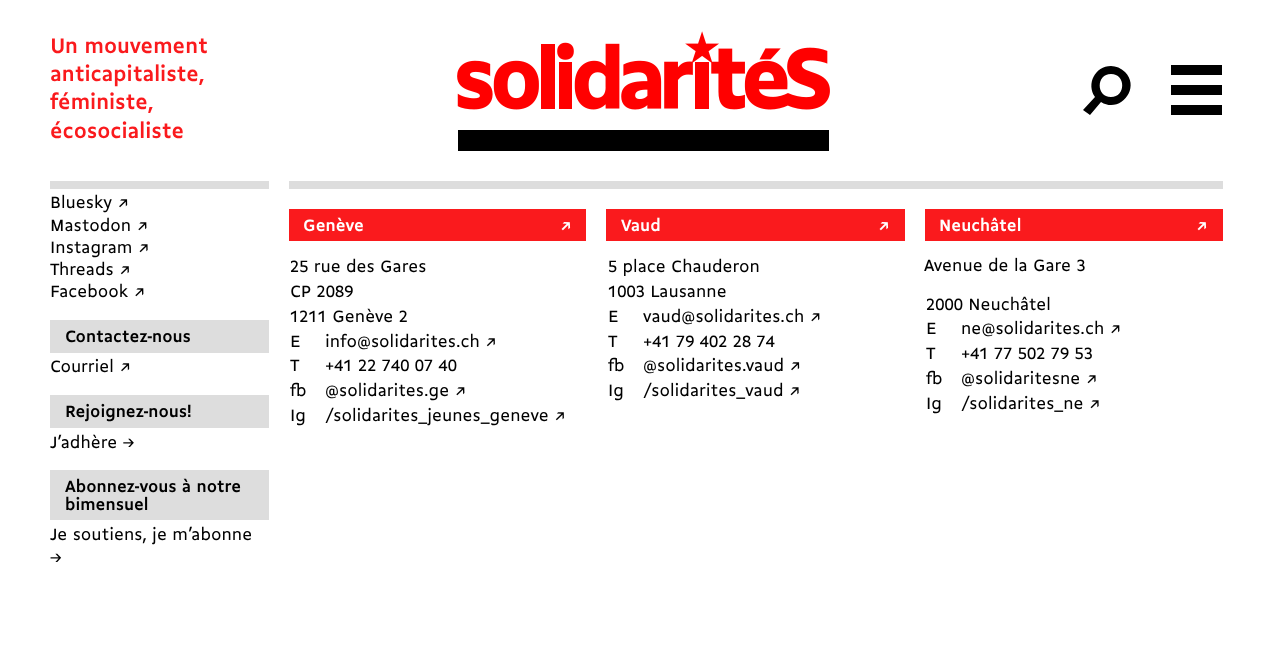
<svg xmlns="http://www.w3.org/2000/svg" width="1272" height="646">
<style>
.a{font:bold 22.5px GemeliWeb;fill:#fa1a1d}
.b{font:17.75px GemeliWeb;fill:#000}
.c{font:bold 17.75px GemeliWeb;fill:#000}
.d{font:bold 17.75px GemeliWeb;fill:#fff}
</style>
<rect width="100%" height="100%" fill="#fff"/>
<image href="1.png" x="457" y="31" width="373" height="120"/>
<path fill="#000" d="M1111 66c-16 0-25 18-16 31l-12 13l7 5l11-13c19 12 40-14 24-30c-4-4-9-6-14-6zm0 31c-15 0-15-23 0-23c15 0 15 23 0 23z"/>
<path fill="#000" d="M1171 105h51v10h-51zm0-20v10h51v-10zm0-10h51v-10h-51z"/>
<path fill="#ddd" d="M50 181h219v8H50z"/>
<path fill="#ddd" d="M50 320h219v33H50z"/>
<path fill="#ddd" d="M50 395h219v33H50z"/>
<path fill="#ddd" d="M50 470h219v50H50z"/>
<path fill="#ddd" d="M289 181h934v8H289z"/>
<path fill="#fa1a1d" d="M289 209h297v32H289z"/>
<path fill="#fa1a1d" d="M606 209h299v32H606z"/>
<path fill="#fa1a1d" d="M925 209h298v32H925z"/>
<text class="a" x="50" y="53">Un mouvement</text>
<text class="a" x="50" y="81">anticapitaliste,</text>
<text class="a" x="50" y="109">féministe,</text>
<text class="a" x="50" y="138">écosocialiste</text>
<text class="b" x="50" y="208">Bluesky ↗︎</text>
<text class="b" x="50" y="231">Mastodon ↗︎</text>
<text class="b" x="50" y="253">Instagram ↗︎</text>
<text class="b" x="50" y="275">Threads ↗︎</text>
<text class="b" x="50" y="297">Facebook ↗︎</text>
<text class="c" x="65" y="342">Contactez-nous</text>
<text class="b" x="50" y="372">Courriel ↗︎</text>
<text class="c" x="65" y="417">Rejoignez-nous!</text>
<text class="b" x="50" y="448">J’adhère →</text>
<text class="c" x="65" y="492">Abonnez-vous à notre</text>
<text class="c" x="65" y="510">bimensuel</text>
<text class="b" x="50" y="540">Je soutiens, je m’abonne</text>
<text class="b" x="50" y="563">→</text>
<text class="d" x="303" y="231">Genève</text>
<text class="d" x="560" y="231">↗</text>
<text class="b" x="290" y="272">25 rue des Gares</text>
<text class="b" x="290" y="297">CP 2089</text>
<text class="b" x="290" y="322">1211 Genève 2</text>
<text class="b" x="290" y="347">E</text>
<text class="b" x="325" y="347">info@solidarites.ch ↗︎</text>
<text class="b" x="290" y="371">T</text>
<text class="b" x="325" y="371">+41 22 740 07 40</text>
<text class="b" x="290" y="396">fb</text>
<text class="b" x="325" y="396">@solidarites.ge ↗︎</text>
<text class="b" x="290" y="421">Ig</text>
<text class="b" x="325" y="421">/solidarites_jeunes_geneve ↗︎</text>
<text class="d" x="621" y="231">Vaud</text>
<text class="d" x="878" y="231">↗</text>
<text class="b" x="608" y="272">5 place Chauderon</text>
<text class="b" x="608" y="297">1003 Lausanne</text>
<text class="b" x="608" y="322">E</text>
<text class="b" x="643" y="322">vaud@solidarites.ch ↗︎</text>
<text class="b" x="608" y="347">T</text>
<text class="b" x="643" y="347">+41 79 402 28 74</text>
<text class="b" x="608" y="371">fb</text>
<text class="b" x="643" y="371">@solidarites.vaud ↗︎</text>
<text class="b" x="608" y="396">Ig</text>
<text class="b" x="643" y="396">/solidarites_vaud ↗︎</text>
<text class="d" x="939" y="231">Neuchâtel</text>
<text class="d" x="1196" y="231">↗</text>
<text class="b" x="924" y="271">Avenue de la Gare 3</text>
<text class="b" x="926" y="310">2000 Neuchâtel</text>
<text class="b" x="926" y="334">E</text>
<text class="b" x="961" y="334">ne@solidarites.ch ↗︎</text>
<text class="b" x="926" y="359">T</text>
<text class="b" x="961" y="359">+41 77 502 79 53</text>
<text class="b" x="926" y="384">fb</text>
<text class="b" x="961" y="384">@solidaritesne ↗︎</text>
<text class="b" x="926" y="409">Ig</text>
<text class="b" x="961" y="409">/solidarites_ne ↗︎</text>
</svg>
